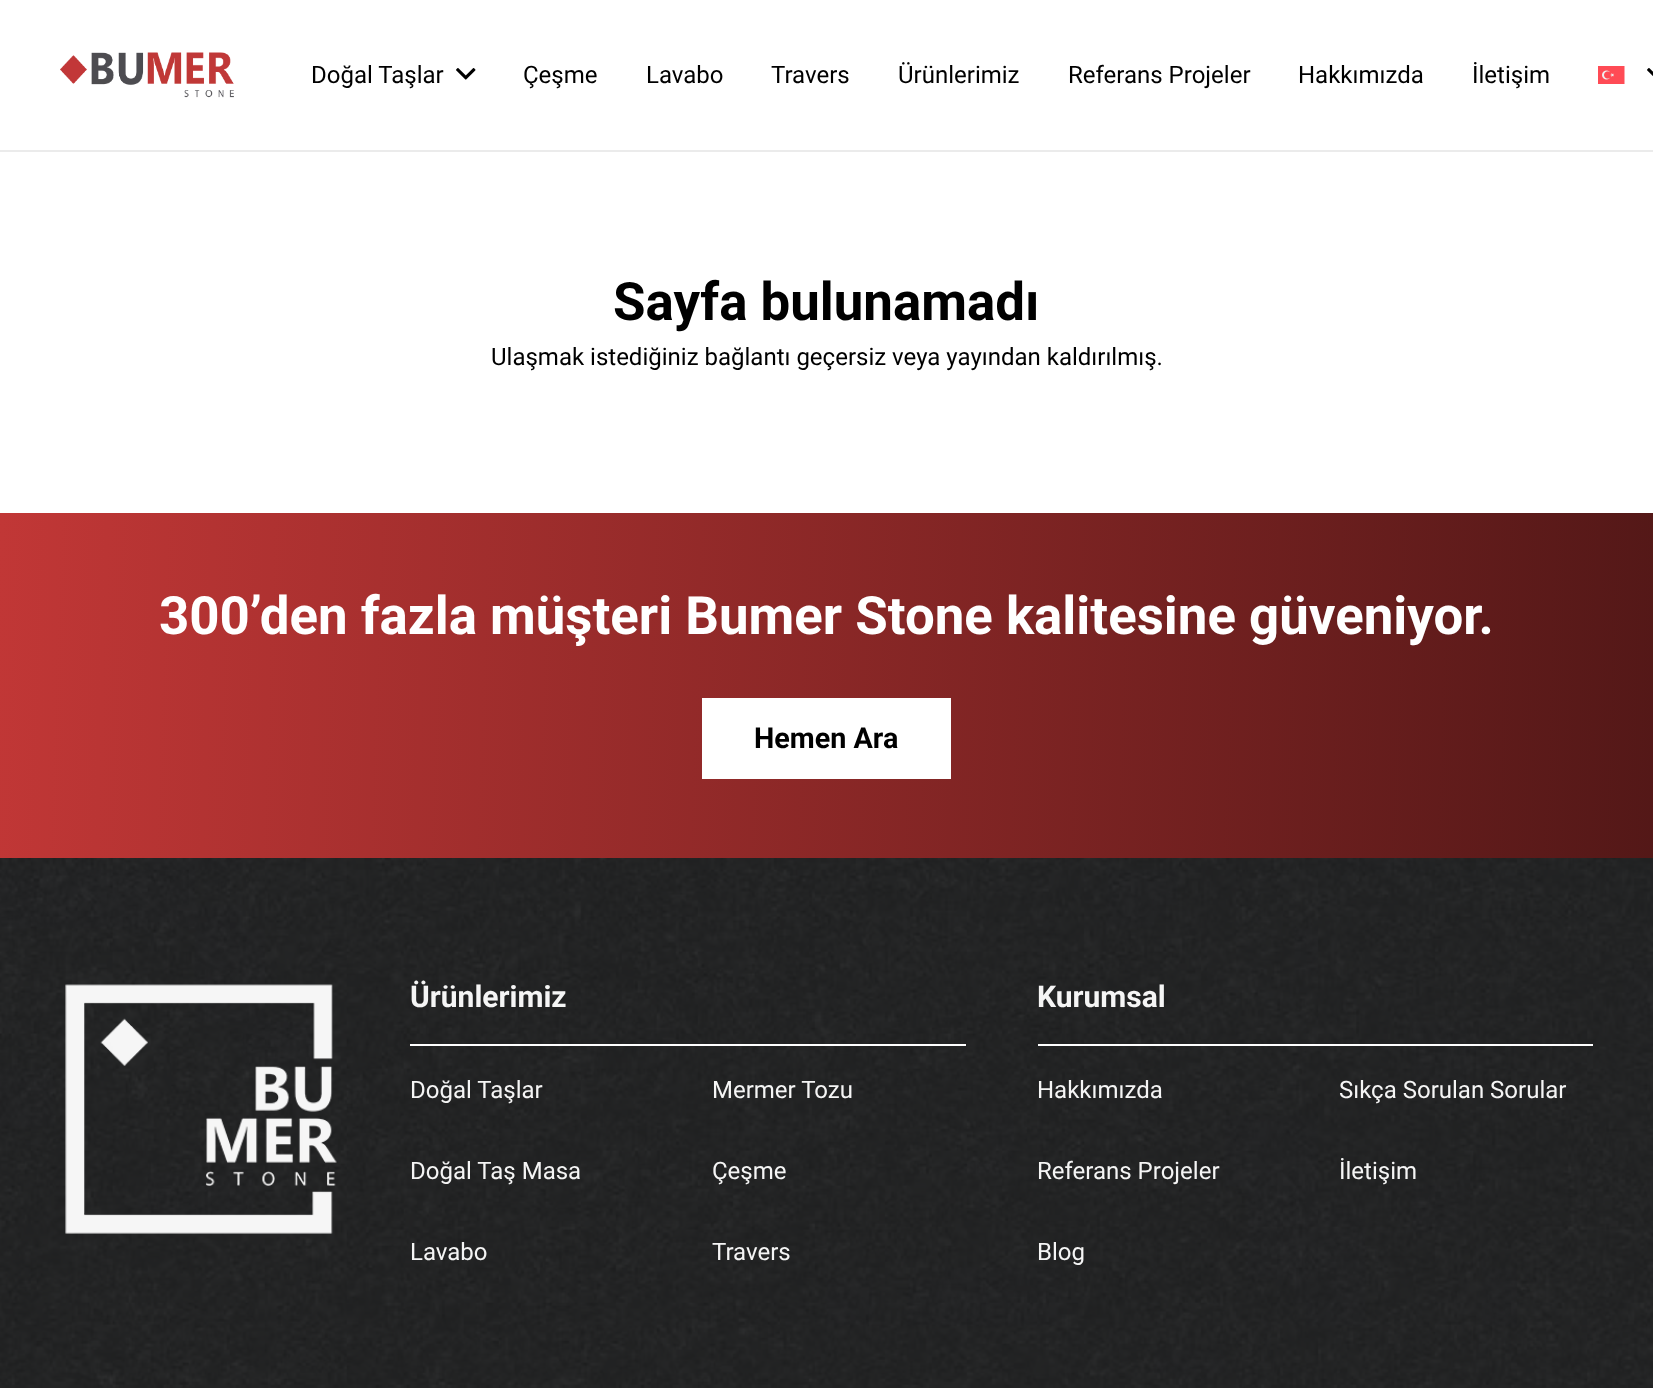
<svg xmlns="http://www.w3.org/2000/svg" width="1653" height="1388">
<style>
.a{font:24px Roboto;fill:#000}
.b{font:bold 52.8px Roboto;fill:#000}
.c{font:bold 52.8px Roboto;fill:#fff}
.d{font:bold 28.75px Roboto;fill:#000}
.e{font:bold 30px Roboto;fill:#f5f5f5}
.f{font:24px Roboto;fill:#f5f5f5}
</style>
<defs>
<linearGradient id="g1" gradientUnits="userSpaceOnUse" x1="-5" y1="656" x2="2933" y2="759"><stop offset="0" stop-color="#c13736"/><stop offset="1" stop-color="#000"/></linearGradient>
</defs>
<rect width="100%" height="100%" fill="#fff"/>
<path fill="#ebebeb" d="M0 150h1653v2H0z"/>
<image href="1.png" x="60" y="52" width="174" height="46"/>
<image href="2.png" x="456" y="68" width="20" height="12"/>
<image href="3.png" x="1598" y="66" width="27" height="18"/>
<image href="4.png" x="1647" y="68" width="6" height="8"/>
<path fill="url(#g1)" d="M0 513h1653v345H0z"/>
<path fill="#fff" d="M702 698h249v81H702z"/>
<image href="5.png" x="0" y="858" width="1653" height="530"/>
<image href="6.png" x="65" y="984" width="272" height="250"/>
<path fill="#fff" d="M410 1044h556v2H410z"/>
<path fill="#fff" d="M1038 1044h555v2H1038z"/>
<text class="a" x="311" y="83">Doğal Taşlar</text>
<text class="a" x="523" y="83">Çeşme</text>
<text class="a" x="646" y="83">Lavabo</text>
<text class="a" x="771" y="83">Travers</text>
<text class="a" x="898" y="83">Ürünlerimiz</text>
<text class="a" x="1068" y="83">Referans Projeler</text>
<text class="a" x="1298" y="83">Hakkımızda</text>
<text class="a" x="1472" y="83">İletişim</text>
<text class="b" x="613" y="320">Sayfa bulunamadı</text>
<text class="a" x="491" y="365">Ulaşmak istediğiniz bağlantı geçersiz veya yayından kaldırılmış.</text>
<text class="c" x="159" y="634">300’den fazla müşteri Bumer Stone kalitesine güveniyor.</text>
<text class="d" x="754" y="748">Hemen Ara</text>
<text class="e" x="410" y="1007">Ürünlerimiz</text>
<text class="f" x="410" y="1098">Doğal Taşlar</text>
<text class="f" x="712" y="1098">Mermer Tozu</text>
<text class="f" x="410" y="1179">Doğal Taş Masa</text>
<text class="f" x="712" y="1179">Çeşme</text>
<text class="f" x="410" y="1260">Lavabo</text>
<text class="f" x="712" y="1260">Travers</text>
<text class="e" x="1037" y="1007">Kurumsal</text>
<text class="f" x="1037" y="1098">Hakkımızda</text>
<text class="f" x="1339" y="1098">Sıkça Sorulan Sorular</text>
<text class="f" x="1037" y="1179">Referans Projeler</text>
<text class="f" x="1339" y="1179">İletişim</text>
<text class="f" x="1037" y="1260">Blog</text>
</svg>
